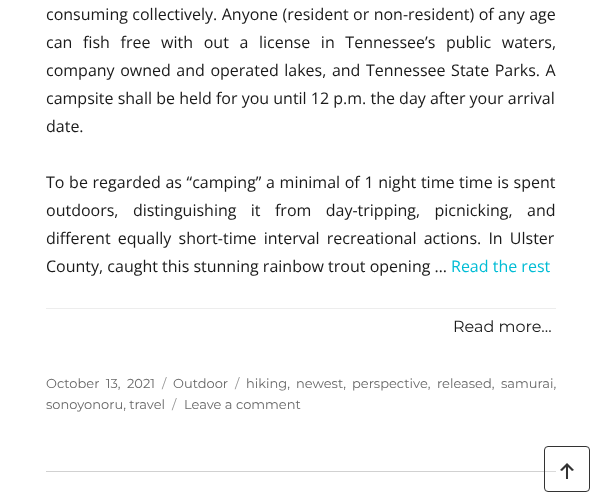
<svg xmlns="http://www.w3.org/2000/svg" width="602" height="502">
<style>
.a{font:16px Open Sans;fill:#1a1a1a}
.b{font:16px Open Sans;fill:#00bcd5}
.c{font:16px Montserrat;fill:#1a1a1a}
.d{font:13px Montserrat;fill:#686868}
.e{font:13px Montserrat;fill:#959595}
</style>
<rect width="100%" height="100%" fill="#fff"/>
<path fill="#ededed" d="M46 308h510v1H46z"/>
<path fill="#d1d1d1" d="M46 471h510v1H46z"/>
<rect fill="#ffffff33" stroke="#333" x="544.5" y="446.5" width="45" height="45" rx="3.5"/>
<image href="1.png" x="560" y="463" width="14" height="16"/>
<text class="a" x="46" y="20" word-spacing="0.25">consuming collectively. Anyone (resident or non-resident) of any age</text>
<text class="a" x="46" y="48" word-spacing="6.5">can fish free with out a license in Tennessee’s public waters,</text>
<text class="a" x="46" y="76" word-spacing="1.4">company owned and operated lakes, and Tennessee State Parks. A</text>
<text class="a" x="46" y="104">campsite shall be held for you until 12 p.m. the day after your arrival</text>
<text class="a" x="46" y="132">date.</text>
<text class="a" x="46" y="188" word-spacing="0.5">To be regarded as “camping” a minimal of 1 night time time is spent</text>
<text class="a" x="46" y="216" word-spacing="10.25">outdoors, distinguishing it from day-tripping, picnicking, and</text>
<text class="a" x="46" y="244" word-spacing="3">different equally short-time interval recreational actions. In Ulster</text>
<text class="a" x="46" y="272">County, caught this stunning rainbow trout opening …</text>
<text class="b" x="451" y="272">Read the rest</text>
<text class="c" x="453" y="332">Read more...</text>
<text class="d" x="46" y="388" word-spacing="3">October 13, 2021</text>
<text class="e" x="162" y="388">/</text>
<text class="d" x="173" y="388">Outdoor</text>
<text class="e" x="235" y="388">/</text>
<text class="d" x="246" y="388">hiking,</text>
<text class="d" x="296" y="388">newest,</text>
<text class="d" x="352" y="388">perspective,</text>
<text class="d" x="437" y="388">released,</text>
<text class="d" x="501" y="388">samurai,</text>
<text class="d" x="46" y="409">sonoyonoru, travel</text>
<text class="e" x="172" y="409">/</text>
<text class="d" x="184" y="409">Leave a comment</text>
</svg>
